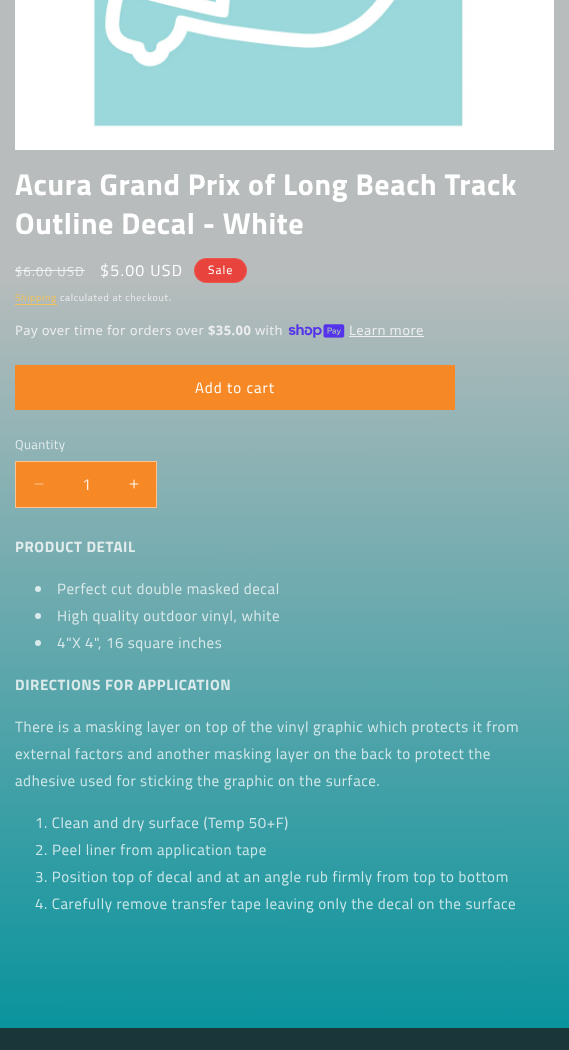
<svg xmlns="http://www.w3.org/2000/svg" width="569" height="1050">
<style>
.a{font:bold 30px Titillium Web;letter-spacing:0.6px;fill:#fff}
.b{font:13px Titillium Web;letter-spacing:1.25px;fill:#edeeee}
.c{font:16px Titillium Web;letter-spacing:1.25px;fill:#fff}
.d{font:12px Titillium Web;letter-spacing:1px;fill:#fff}
.e{font:10px Titillium Web;letter-spacing:0.7px;fill:#f3c454}
.f{font:10px Titillium Web;letter-spacing:0.7px;fill:#edeeee}
.g{font:13px Noto Sans;letter-spacing:0.4px;fill:#edeeee}
.h{font:bold 13px Noto Sans;letter-spacing:0.4px;fill:#edeeee}
.i{font:15px Titillium Web;letter-spacing:1px;fill:#fff}
.j{font:13px Titillium Web;letter-spacing:0.4px;fill:#e3eced}
.k{font:16px Titillium Web;fill:#feedde}
.l{font:bold 15px Titillium Web;letter-spacing:0.6px;fill:#e3eced}
.m{font:15px Titillium Web;letter-spacing:0.6px;fill:#dbeaeb}
.n{font:bold 15px Titillium Web;letter-spacing:0.6px;fill:#dbeaeb}
.o{font:15px Titillium Web;letter-spacing:0.6px;fill:#d3e8ea}
.p{font:15px Titillium Web;letter-spacing:0.6px;fill:#cce7e8}
</style>
<defs>
<linearGradient id="g1" gradientUnits="userSpaceOnUse" x1="284" y1="0" x2="285" y2="1050"><stop offset="0.26" stop-color="#b8bcbc"/><stop offset="1" stop-color="#05929c"/></linearGradient>
<linearGradient id="g2" gradientUnits="userSpaceOnUse" x1="284" y1="0" x2="285" y2="1050"><stop offset="0" stop-color="#1f1f21" stop-opacity="0.85"/><stop offset="1" stop-color="#1f1f21" stop-opacity="0.8"/></linearGradient>
</defs>
<rect width="100%" height="100%" fill="#fff"/>
<path fill="url(#g1)" d="M0 0h569v1050H0z"/>
<image href="1.png" x="15" y="0" width="539" height="150"/>
<rect fill="#e8443d" x="194" y="258" width="53" height="25" rx="12.5"/>
<rect fill="none" stroke="#ffffff1a" x="194.5" y="258.5" width="52" height="24" rx="12"/>
<path fill="#f3c454" d="M15 304h42v1H15z"/>
<image href="2.png" x="288" y="324" width="57" height="14"/>
<path fill="#eaeeee" d="M349 336h75v1H349z"/>
<path fill="#f68925" d="M15 365h440v45H15z"/>
<path fill="#f68925" d="M16 462h140v45H16z"/>
<image href="3.png" x="34" y="483" width="10" height="2"/>
<image href="4.png" x="129" y="479" width="10" height="10"/>
<path fill="none" stroke="#fbc492" d="M15.5 461.5h141v46H15.5z"/>
<circle fill="#dbeaeb" cx="38" cy="589" r="3"/>
<circle fill="#daeaeb" cx="38" cy="616" r="3"/>
<circle fill="#d8e9eb" cx="38" cy="643" r="3"/>
<path fill="url(#g2)" d="M0 1028h569v22H0z"/>
<text class="a" x="15" y="195">Acura Grand Prix of Long Beach Track</text>
<text class="a" x="15" y="234">Outline Decal - White</text>
<text class="b" x="15" y="276">$6.00 USD</text>
<path fill="#ffffffbf" d="M15 270h70v1H15z"/>
<text class="c" x="100" y="276">$5.00 USD</text>
<text class="d" x="208" y="274">Sale</text>
<text class="e" x="15" y="301">Shipping</text>
<text class="f" x="60" y="301">calculated at checkout.</text>
<text class="g" x="15" y="335">Pay over time for orders over</text>
<text class="h" x="208" y="335">$35.00</text>
<text class="g" x="255" y="335">with</text>
<text class="g" x="349" y="335">Learn more</text>
<text class="i" x="195" y="393">Add to cart</text>
<text class="j" x="15" y="449">Quantity</text>
<text class="k" x="82" y="490">1</text>
<text class="l" x="15" y="552">PRODUCT DETAIL</text>
<text class="m" x="57" y="594">Perfect cut double masked decal</text>
<text class="m" x="57" y="621">High quality outdoor vinyl, white</text>
<text class="m" x="57" y="648">4"X 4", 16 square inches</text>
<text class="n" x="15" y="690">DIRECTIONS FOR APPLICATION</text>
<text class="o" x="15" y="732">There is a masking layer on top of the vinyl graphic which protects it from</text>
<text class="o" x="15" y="759">external factors and another masking layer on the back to protect the</text>
<text class="o" x="15" y="786">adhesive used for sticking the graphic on the surface.</text>
<text class="o" x="35" y="828">1. Clean and dry surface (Temp 50+F)</text>
<text class="p" x="35" y="855">2.</text>
<text class="p" x="52" y="855">Peel liner from application tape</text>
<text class="p" x="35" y="882">3. Position top of decal and at an angle rub firmly from top to bottom</text>
<text class="p" x="35" y="909">4. Carefully remove transfer tape leaving only the decal on the surface</text>
</svg>
